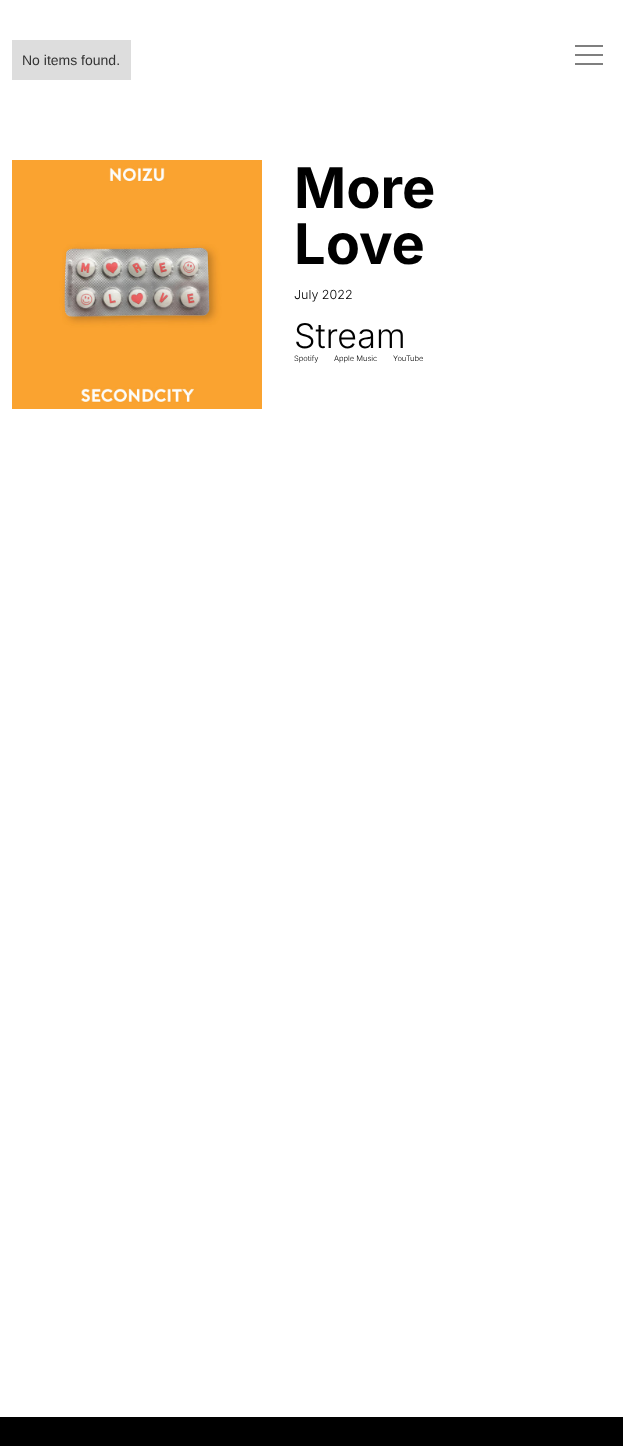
<svg xmlns="http://www.w3.org/2000/svg" width="623" height="1446">
<style>
.a{font:14px Liberation Sans;fill:#333}
.b{font:bold 56px Inter;fill:#000}
.c{font:300 12.5px Inter;fill:#000}
.d{font:300 34px Inter;fill:#000}
.e{font:300 7.5px Inter;fill:#000}
</style>
<rect width="100%" height="100%" fill="#fff"/>
<path fill="#ddd" d="M12 40h119v40H12z"/>
<image href="1.png" x="12" y="160" width="250" height="249"/>
<path fill="none" stroke="#000" stroke-width="1.2" d="M603 55h-28m28-9h-28m0 18h28"/>
<path fill="#000" d="M0 1417h623v29H0z"/>
<text class="a" x="22" y="65">No items found.</text>
<text class="b" x="294" y="208">More</text>
<text class="b" x="294" y="264">Love</text>
<text class="c" x="294" y="299">July 2022</text>
<text class="d" x="294" y="348">Stream</text>
<text class="e" x="294" y="361">Spotify</text>
<text class="e" x="334" y="361">Apple Music</text>
<text class="e" x="393" y="361">YouTube</text>
</svg>
